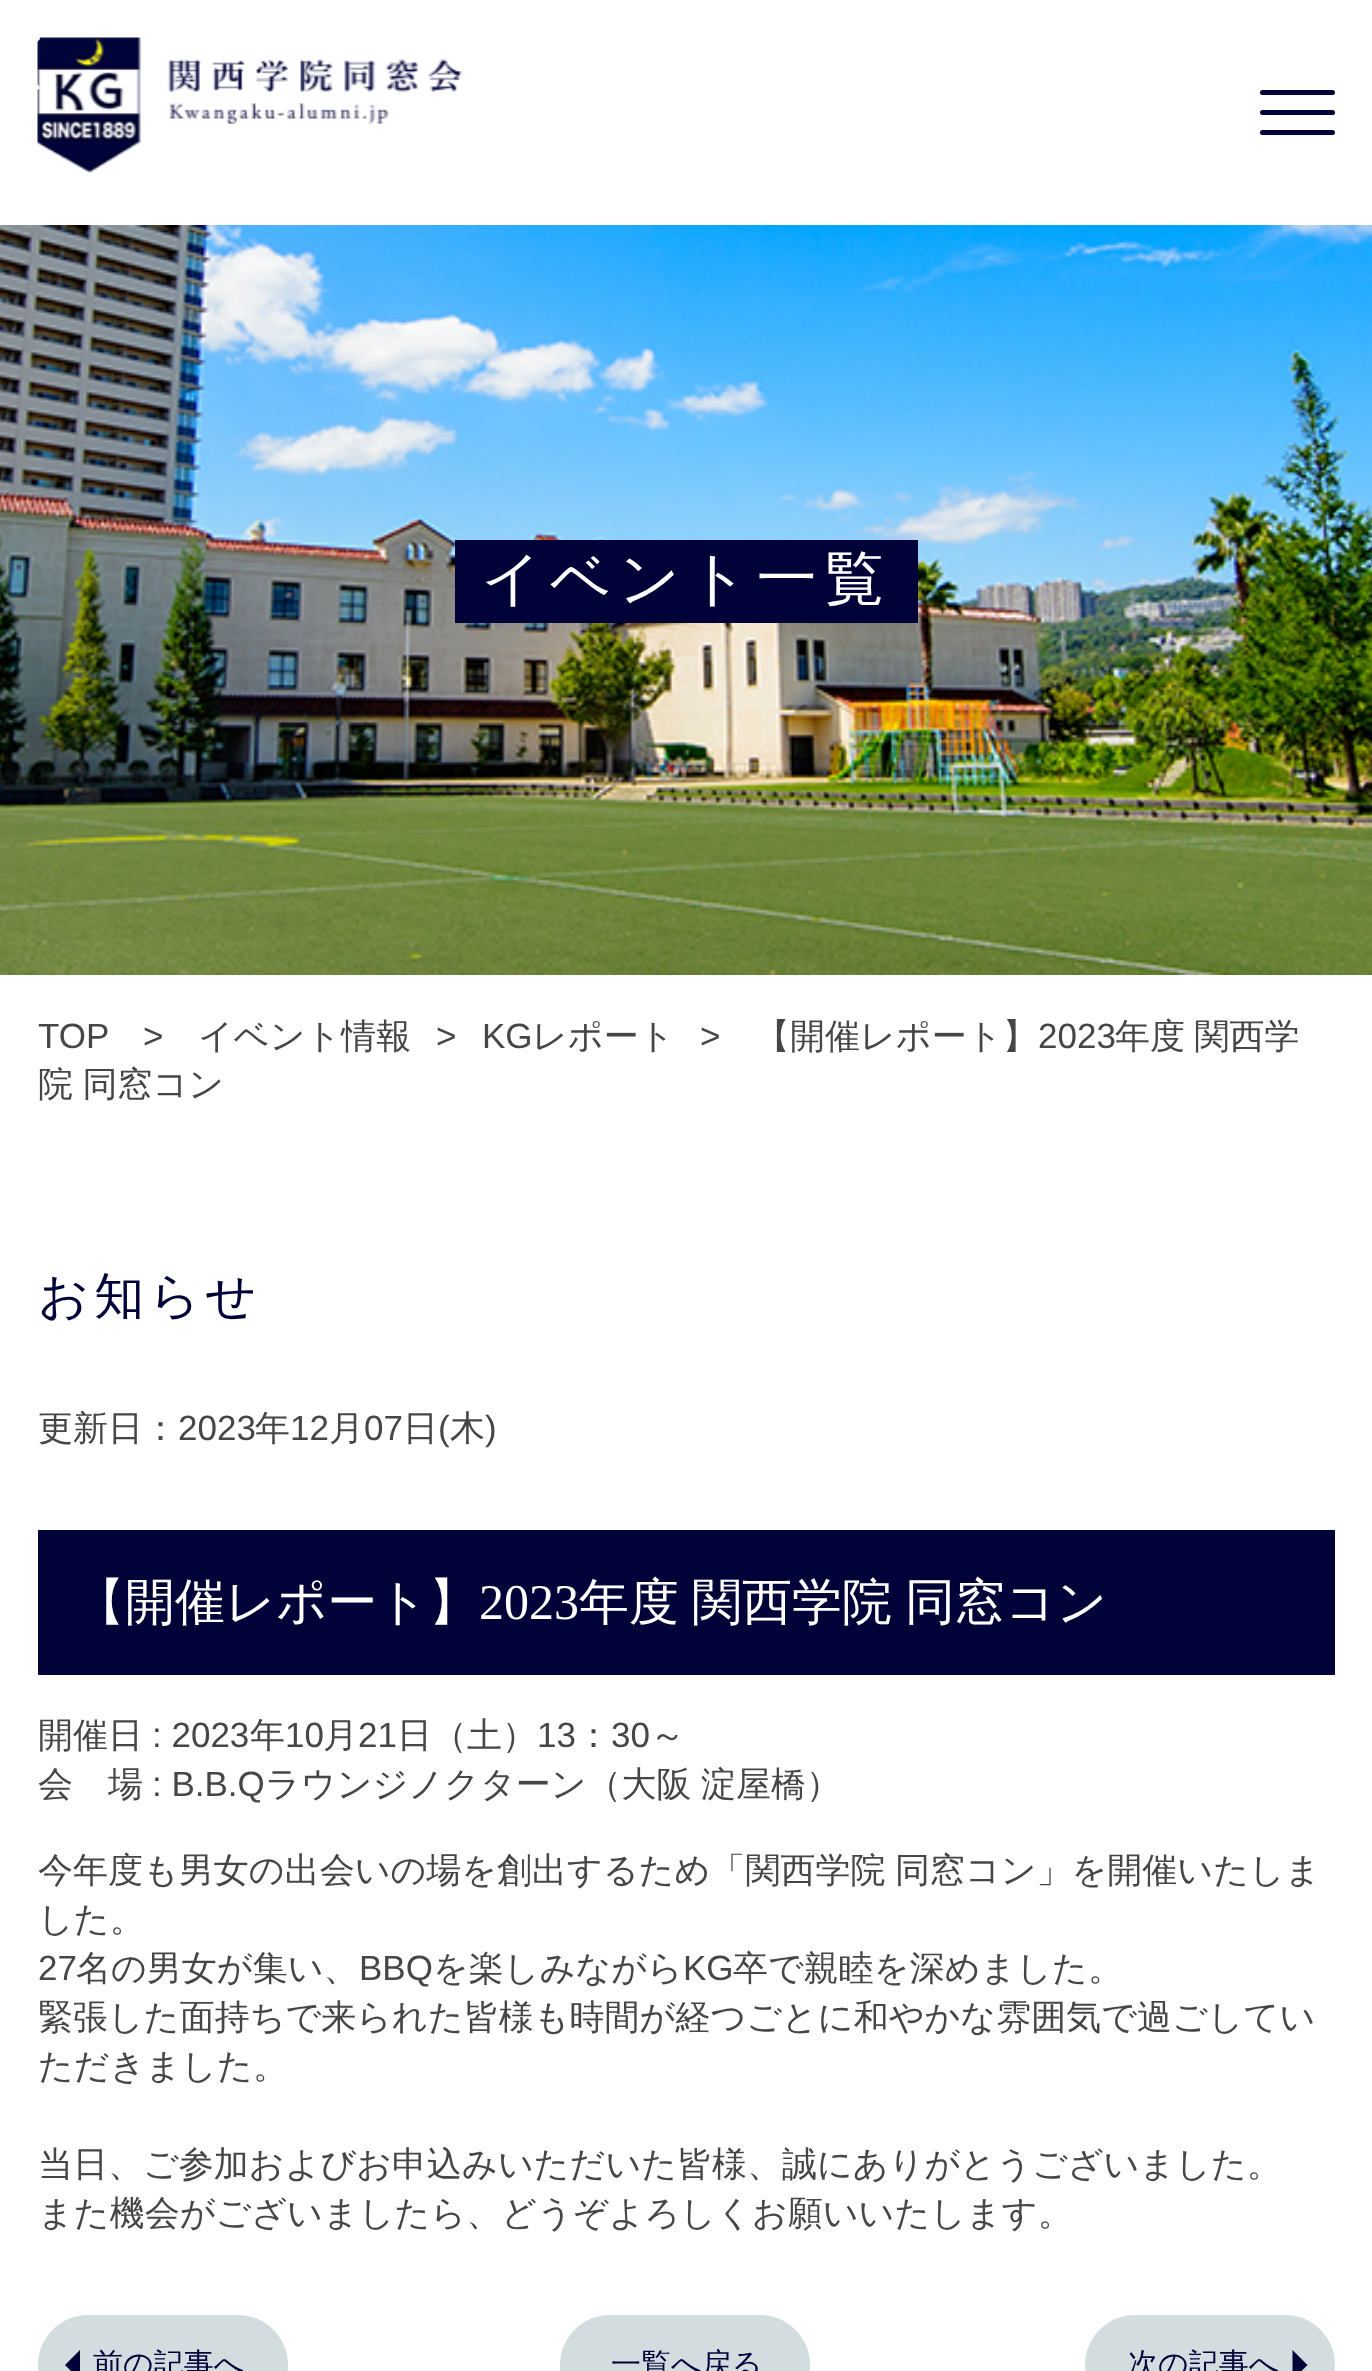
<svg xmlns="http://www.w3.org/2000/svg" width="1372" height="2371">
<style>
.a{font:500 60px WenQuanYi Zen Hei;letter-spacing:7.5px;fill:#fff}
.b{font:35px Liberation Sans;fill:#464646}
.c{font:500 35px WenQuanYi Zen Hei;fill:#464646}
.d{font:500 50px WenQuanYi Zen Hei;letter-spacing:5px;fill:#010238}
.e{font:500 50px WenQuanYi Zen Hei;fill:#fff}
.f{font:50px Liberation Serif;fill:#fff}
.g{font:500 30px WenQuanYi Zen Hei;fill:#010238}
</style>
<rect width="100%" height="100%" fill="#fff"/>
<image href="1.png" x="37" y="37" width="425" height="136"/>
<path fill="#fff" d="M-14 85l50-49l2-1c1 1 2 2 2 4l-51 51c-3 1-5-3-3-5z"/>
<path fill="#fff" d="M-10 36l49 50l1 2c-1 1-2 2-4 2l-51-51c-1-3 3-5 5-3z"/>
<rect fill="#010238" x="1260" y="90" width="75" height="5" rx="2.5"/>
<rect fill="#010238" x="1260" y="110" width="75" height="5" rx="2.5"/>
<rect fill="#010238" x="1260" y="130" width="75" height="5" rx="2.5"/>
<image href="2.png" x="0" y="225" width="1372" height="750"/>
<path fill="#010238" d="M455 540h463v83H455z"/>
<path fill="#010238" d="M38 1530h1297v145H38z"/>
<rect fill="#d3dde0" x="38" y="2315" width="250" height="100" rx="50"/>
<path fill="#010238" d="M80 2350v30l-15-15z"/>
<rect fill="#d3dde0" x="560" y="2315" width="250" height="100" rx="50"/>
<rect fill="#d3dde0" x="1085" y="2315" width="250" height="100" rx="50"/>
<path fill="#010238" d="M1292.5 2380v-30l15 15z"/>
<text class="a" x="481" y="599">イベント一覧</text>
<text class="b" x="38" y="1048">TOP</text>
<text class="b" x="143" y="1048">&gt;</text>
<text class="c" x="198" y="1048">イベント情報</text>
<text class="b" x="436" y="1048">&gt;</text>
<text class="b" x="482" y="1048">KG</text>
<text class="c" x="532" y="1048">レポート</text>
<text class="b" x="700" y="1048">&gt;</text>
<text class="c" x="755" y="1048">【開催レポート】</text>
<text class="b" x="1038" y="1048">2023</text>
<text class="c" x="1115" y="1048" word-spacing="-1">年度 関西学</text>
<text class="c" x="38" y="1096" word-spacing="-1">院 同窓コン</text>
<text class="d" x="38" y="1313">お知らせ</text>
<text class="c" x="38" y="1440">更新日：</text>
<text class="b" x="178" y="1440">2023</text>
<text class="c" x="255" y="1440">年</text>
<text class="b" x="290" y="1440">12</text>
<text class="c" x="329" y="1440">月</text>
<text class="b" x="364" y="1440">07</text>
<text class="c" x="403" y="1440">日</text>
<text class="b" x="438" y="1440">(</text>
<text class="c" x="450" y="1440">木</text>
<text class="b" x="485" y="1440">)</text>
<text class="e" x="75" y="1619">【開催レポート】</text>
<text class="f" x="479" y="1619">2023</text>
<text class="e" x="579" y="1619" word-spacing="-2">年度 関西学院 同窓コン</text>
<text class="c" x="38" y="1747">開催日</text>
<text class="b" x="152" y="1747">: 2023</text>
<text class="c" x="250" y="1747">年</text>
<text class="b" x="285" y="1747">10</text>
<text class="c" x="323" y="1747">月</text>
<text class="b" x="358" y="1747">21</text>
<text class="c" x="397" y="1747">日（土）</text>
<text class="b" x="537" y="1747">13</text>
<text class="c" x="576" y="1747">：</text>
<text class="b" x="611" y="1747">30</text>
<text class="c" x="650" y="1747">～</text>
<text class="c" x="38" y="1796">会　場</text>
<text class="b" x="152" y="1796">: B.B.Q</text>
<text class="c" x="265" y="1796">ラウンジノクターン（大阪</text>
<text class="c" x="701" y="1796">淀屋橋）</text>
<text class="c" x="38" y="1882" word-spacing="-1">今年度も男女の出会いの場を創出するため「関西学院 同窓コン」を開催いたしま</text>
<text class="c" x="38" y="1931">した。</text>
<text class="b" x="38" y="1980">27</text>
<text class="c" x="76" y="1980">名の男女が集い、</text>
<text class="b" x="359" y="1980">BBQ</text>
<text class="c" x="433" y="1980">を楽しみながら</text>
<text class="b" x="683" y="1980">KG</text>
<text class="c" x="733" y="1980">卒で親睦を深めました。</text>
<text class="c" x="38" y="2029">緊張した面持ちで来られた皆様も時間が経つごとに和やかな雰囲気で過ごしてい</text>
<text class="c" x="38" y="2078">ただきました。</text>
<text class="c" x="38" y="2176">当日、ご参加およびお申込みいただいた皆様、誠にありがとうございました。</text>
<text class="c" x="38" y="2225">また機会がございましたら、どうぞよろしくお願いいたします。</text>
<text class="g" x="93" y="2374">前の記事へ</text>
<text class="g" x="611" y="2374">一覧へ戻る</text>
<text class="g" x="1128" y="2374">次の記事へ</text>
</svg>
